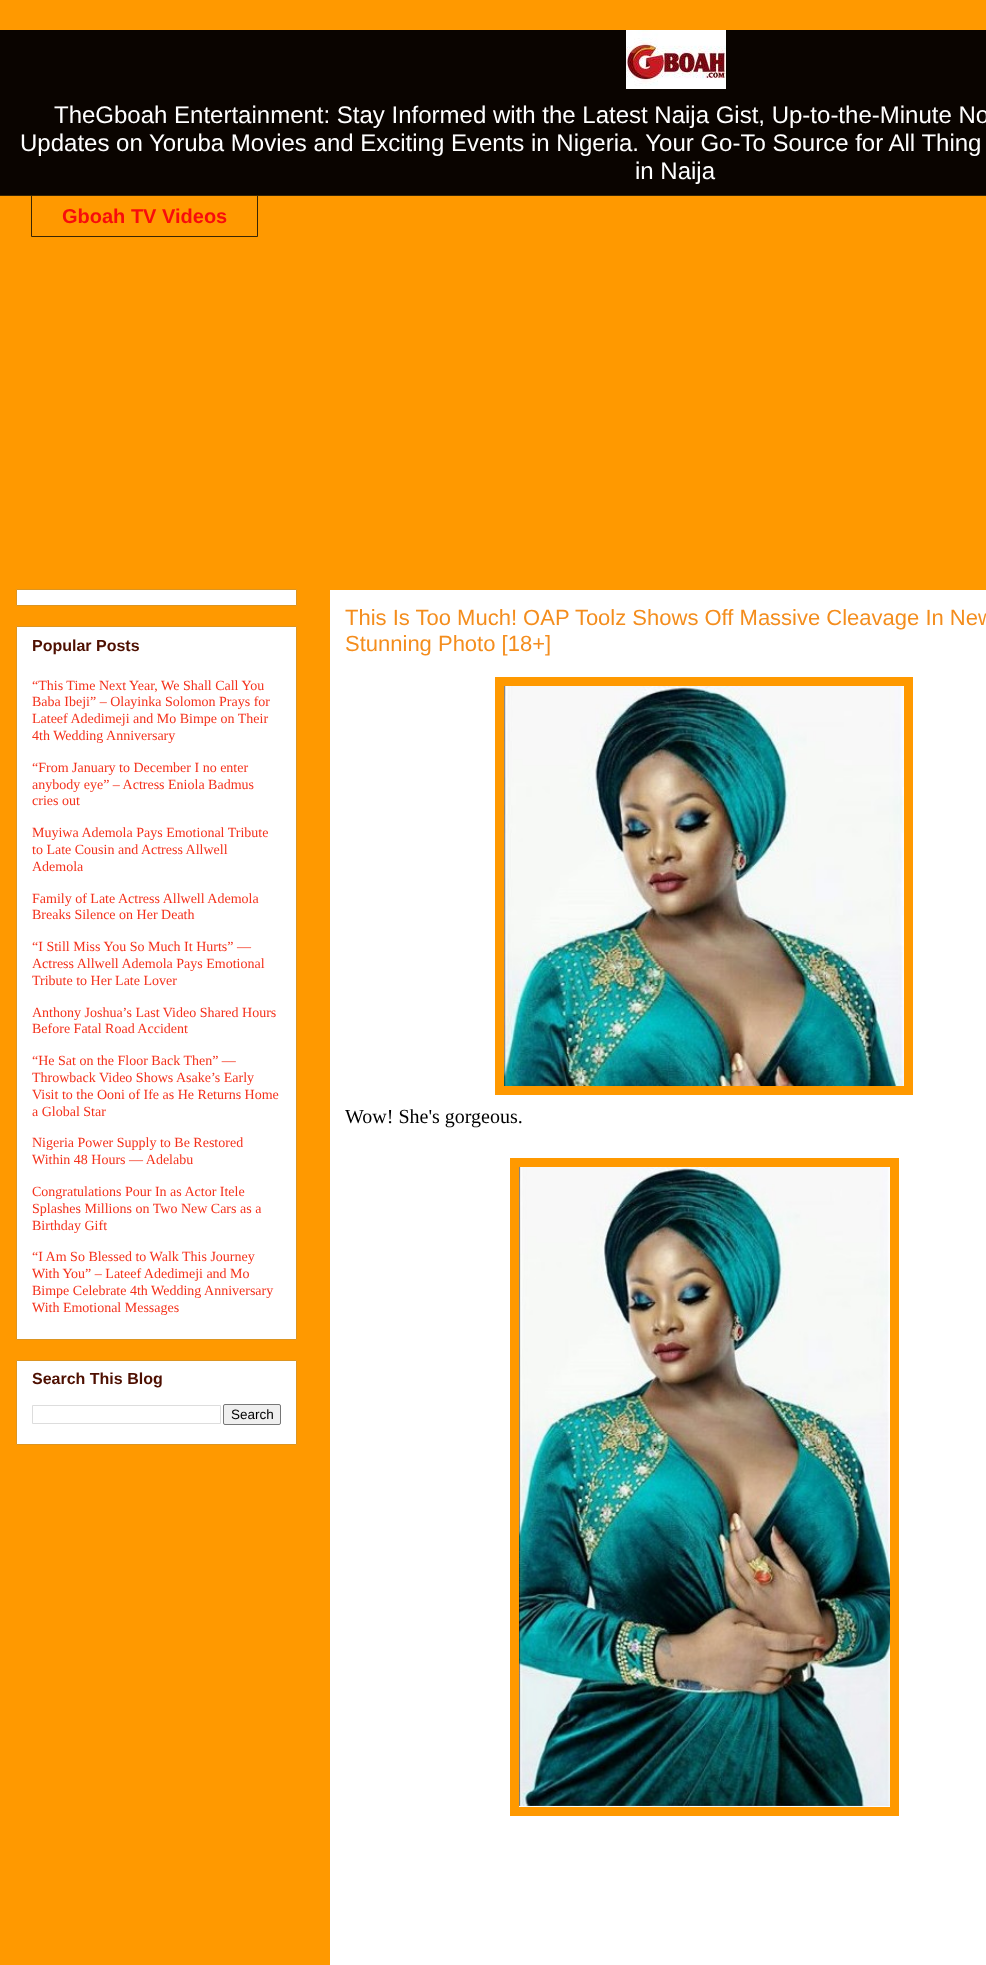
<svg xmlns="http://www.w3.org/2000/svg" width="986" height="1965">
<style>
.a{font:24px Liberation Sans;fill:#fff}
.b{font:bold 20px Liberation Sans;fill:#f80c0c}
.c{font:bold 16px Liberation Sans;fill:#4e0f00}
.d{font:14px Liberation Serif;fill:#f4321c}
.e{font:13.5px Liberation Sans;fill:#000}
.f{font:22px Liberation Sans;fill:#f48d1d}
.g{font:20px Liberation Serif;fill:#000}
</style>
<rect width="100%" height="100%" fill="#f90"/>
<path fill="#0a0400" d="M0 30h986v165H0z"/>
<image href="1.png" x="626" y="30" width="100" height="59"/>
<path fill="#392603" d="M0 195h986v1H0z"/>
<path fill="none" stroke="#392603" d="M31.5 195.5h226v41H31.5z"/>
<path fill="#fff" stroke="#dc9522" d="M16.5 589.5h280v16H16.5z"/>
<path fill="#fff" stroke="#dc9522" d="M16.5 626.5h280v713H16.5z"/>
<path fill="#fff" stroke="#dc9522" d="M16.5 1360.5h280v84H16.5z"/>
<path fill="none" stroke="#ddd" d="M32.5 1405.5h188v18H32.5z"/>
<rect fill="#efefef" stroke="#767676" x="223.5" y="1404.5" width="57" height="20" rx="1.5"/>
<path fill="#fff" d="M330 590h656v1375H330z"/>
<path fill="#f90" d="M495 677h418v418H495z"/>
<image href="2.png" x="504" y="686" width="400" height="400"/>
<path fill="#f90" d="M510 1158h389v658H510z"/>
<image href="3.png" x="519" y="1167" width="371" height="640"/>
<text class="a" x="54" y="123">TheGboah Entertainment: Stay Informed with the Latest Naija Gist, Up-to-the-Minute No</text>
<text class="a" x="20" y="151">Updates on Yoruba Movies and Exciting Events in Nigeria. Your Go-To Source for All Thing</text>
<text class="a" x="635" y="179">in Naija</text>
<text class="b" x="62" y="223">Gboah TV Videos</text>
<text class="c" x="32" y="651">Popular Posts</text>
<text class="d" x="32" y="690">“This Time Next Year, We Shall Call You</text>
<text class="d" x="32" y="706">Baba Ibeji” – Olayinka Solomon Prays for</text>
<text class="d" x="32" y="723">Lateef Adedimeji and Mo Bimpe on Their</text>
<text class="d" x="32" y="740">4th Wedding Anniversary</text>
<text class="d" x="32" y="772">“From January to December I no enter</text>
<text class="d" x="32" y="789">anybody eye” – Actress Eniola Badmus</text>
<text class="d" x="32" y="805">cries out</text>
<text class="d" x="32" y="837">Muyiwa Ademola Pays Emotional Tribute</text>
<text class="d" x="32" y="854">to Late Cousin and Actress Allwell</text>
<text class="d" x="32" y="871">Ademola</text>
<text class="d" x="32" y="903">Family of Late Actress Allwell Ademola</text>
<text class="d" x="32" y="919">Breaks Silence on Her Death</text>
<text class="d" x="32" y="951">“I Still Miss You So Much It Hurts” —</text>
<text class="d" x="32" y="968">Actress Allwell Ademola Pays Emotional</text>
<text class="d" x="32" y="985">Tribute to Her Late Lover</text>
<text class="d" x="32" y="1017">Anthony Joshua’s Last Video Shared Hours</text>
<text class="d" x="32" y="1033">Before Fatal Road Accident</text>
<text class="d" x="32" y="1065">“He Sat on the Floor Back Then” —</text>
<text class="d" x="32" y="1082">Throwback Video Shows Asake’s Early</text>
<text class="d" x="32" y="1099">Visit to the Ooni of Ife as He Returns Home</text>
<text class="d" x="32" y="1116">a Global Star</text>
<text class="d" x="32" y="1147">Nigeria Power Supply to Be Restored</text>
<text class="d" x="32" y="1164">Within 48 Hours — Adelabu</text>
<text class="d" x="32" y="1196">Congratulations Pour In as Actor Itele</text>
<text class="d" x="32" y="1213">Splashes Millions on Two New Cars as a</text>
<text class="d" x="32" y="1230">Birthday Gift</text>
<text class="d" x="32" y="1261">“I Am So Blessed to Walk This Journey</text>
<text class="d" x="32" y="1278">With You” – Lateef Adedimeji and Mo</text>
<text class="d" x="32" y="1295">Bimpe Celebrate 4th Wedding Anniversary</text>
<text class="d" x="32" y="1312">With Emotional Messages</text>
<text class="c" x="32" y="1384">Search This Blog</text>
<text class="e" x="231" y="1419">Search</text>
<text class="f" x="345" y="625">This Is Too Much! OAP Toolz Shows Off Massive Cleavage In New</text>
<text class="f" x="345" y="651">Stunning Photo [18+]</text>
<text class="g" x="345" y="1123">Wow! She's gorgeous.</text>
</svg>
